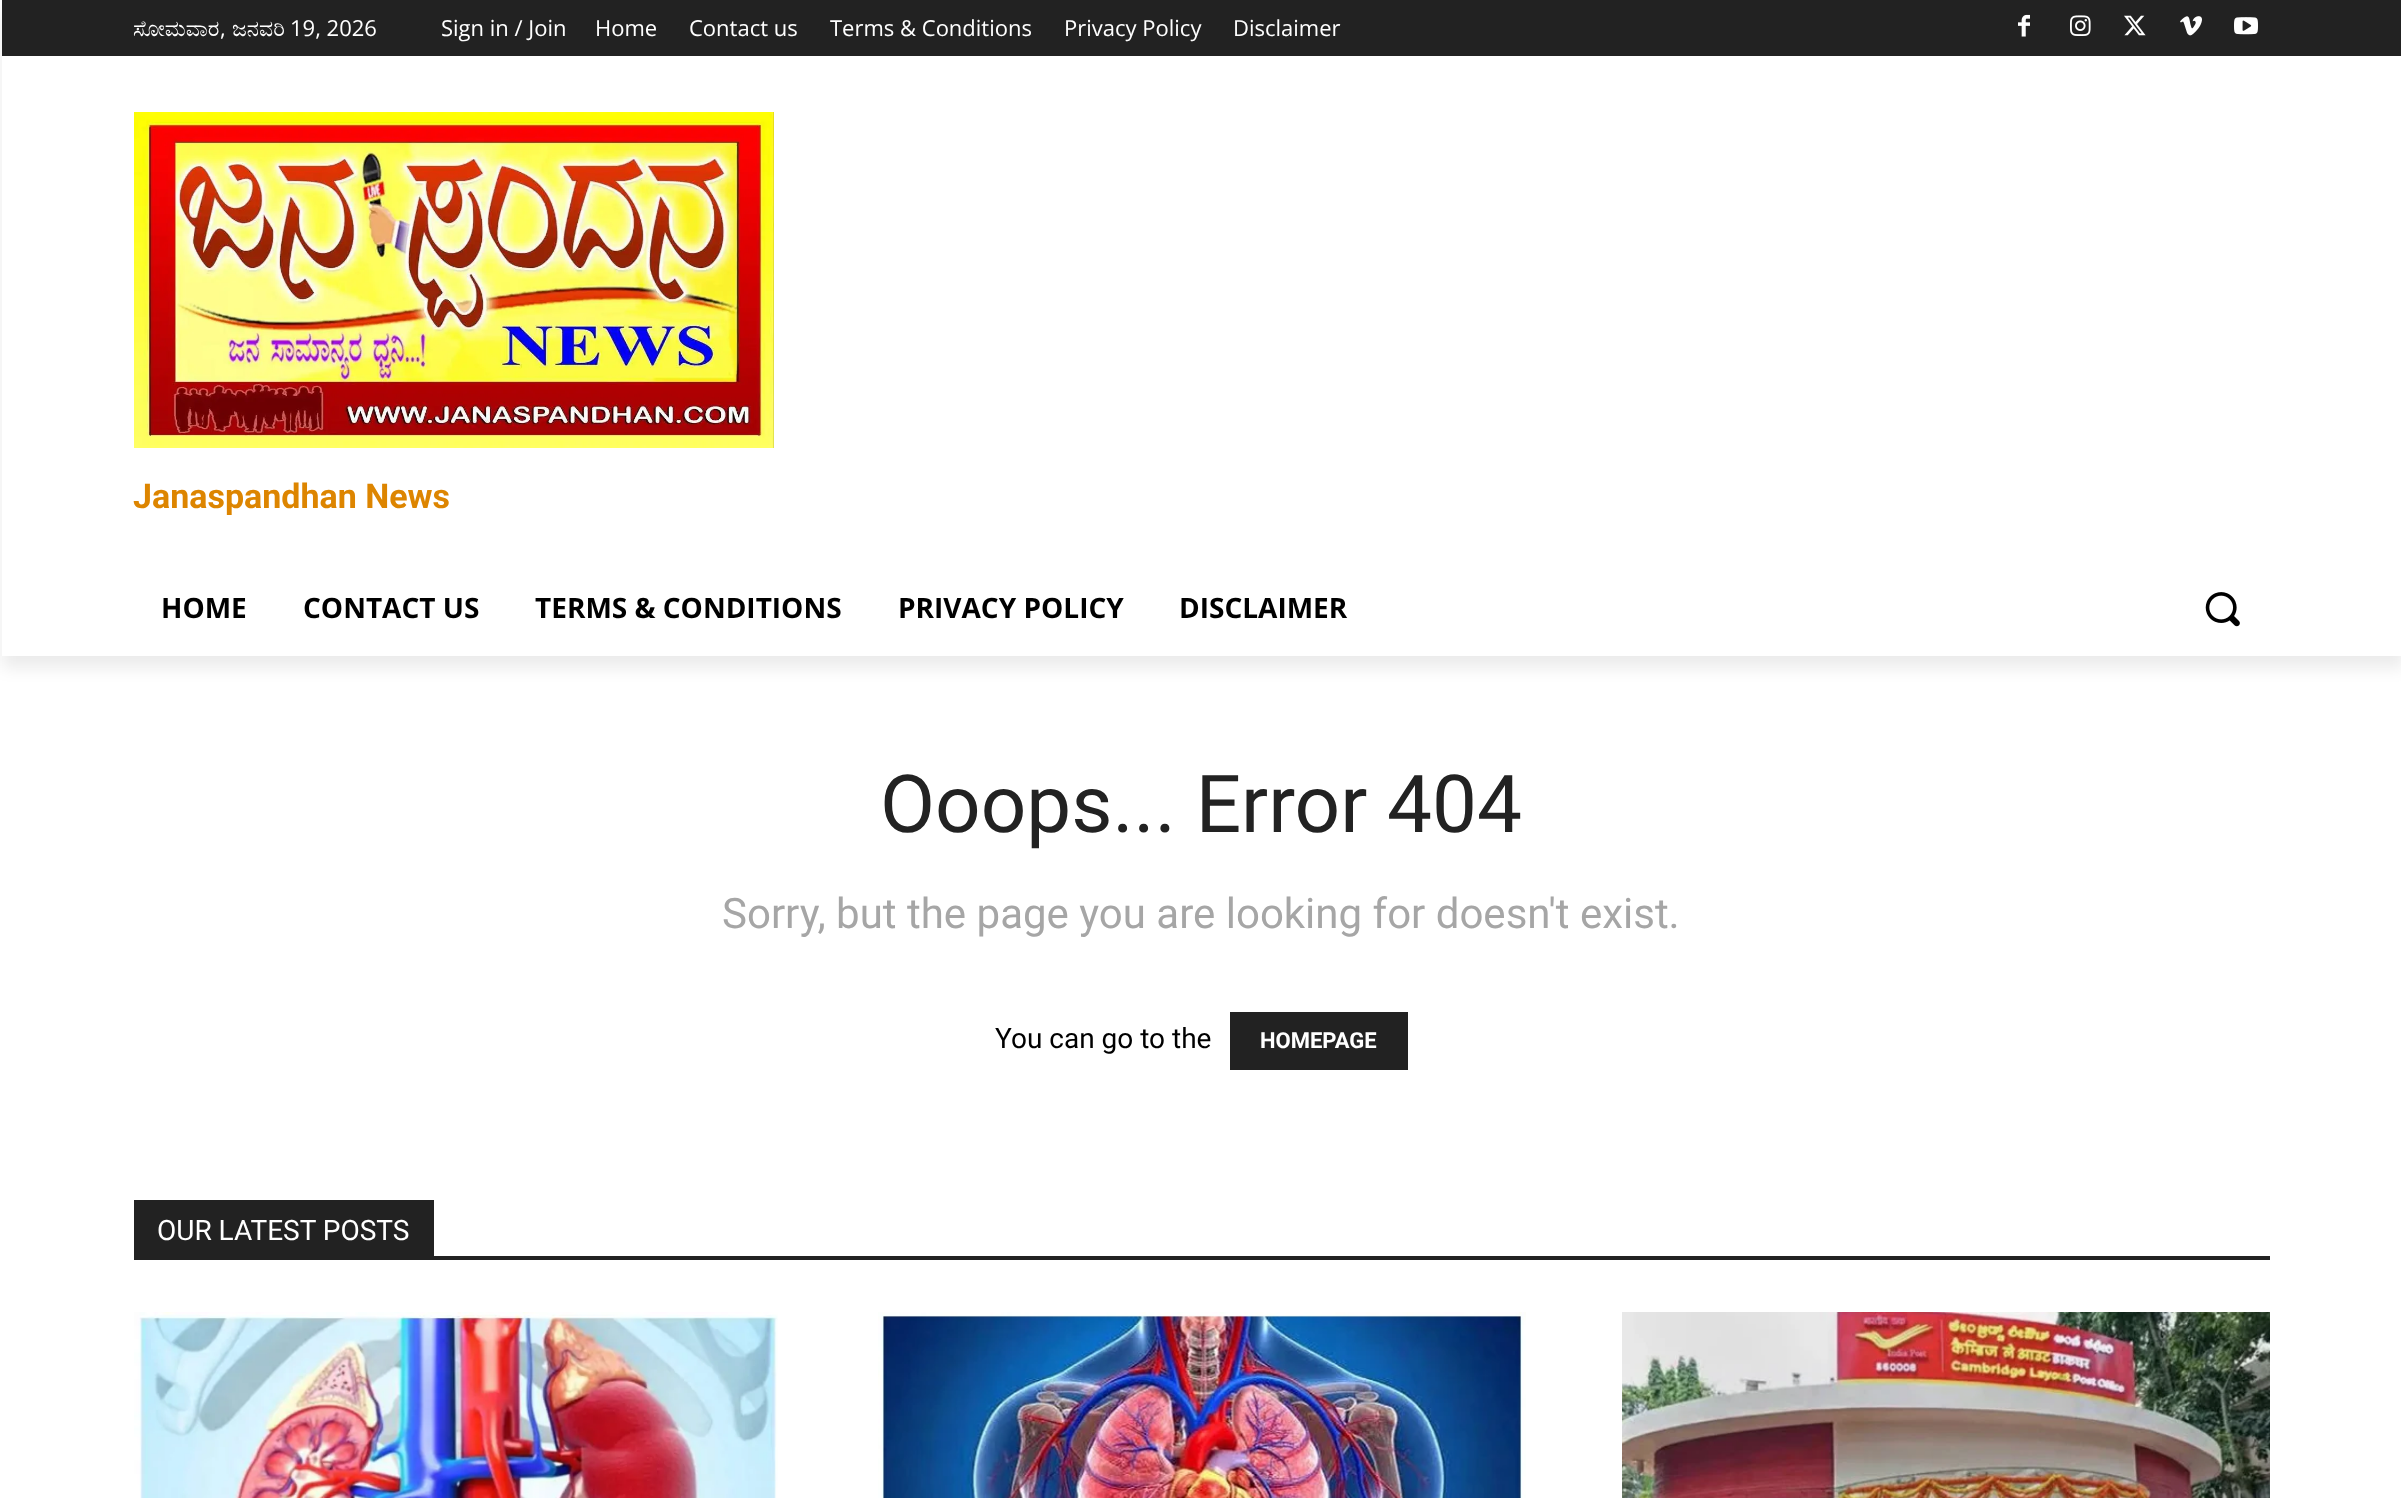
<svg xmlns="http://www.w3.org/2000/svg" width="2401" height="1498">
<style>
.a{font:22px FreeSerif;fill:#fff}
.b{font:22px Open Sans;fill:#fff}
.c{font:bold 34px Roboto;fill:#dd8500}
.d{font:bold 28px Open Sans;fill:#000}
.e{font:80px Roboto;fill:#222}
.f{font:42px Roboto;fill:#a6a6a6}
.g{font:28px Roboto;fill:#000}
.h{font:bold 22px Roboto;fill:#fff}
.i{font:28px Roboto;fill:#fff}
</style>
<defs>
<clipPath id="clip1"><path d="M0 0h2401v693h-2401zm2 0h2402v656h-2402z" clip-rule="evenodd"/></clipPath>
</defs>
<rect width="100%" height="100%" fill="#fff"/>
<path fill="#222" d="M2 0h2399v56H2z"/>
<image href="1.png" x="2018" y="14" width="12" height="23"/>
<image href="2.png" x="2070" y="15" width="21" height="21"/>
<image href="3.png" x="2124" y="15" width="22" height="21"/>
<image href="4.png" x="2180" y="16" width="22" height="20"/>
<image href="5.png" x="2234" y="17" width="24" height="18"/>
<image href="6.png" x="134" y="112" width="640" height="336"/>
<g clip-path="url(#clip1)">
<path fill="#00000014" filter="blur(8px)" d="M2 12h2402v656H2z"/>
</g>
<image href="7.png" x="2205" y="592" width="35" height="35"/>
<path fill="#222" d="M1230 1012h178v58H1230z"/>
<path fill="#222" d="M134 1256h2136v4H134z"/>
<path fill="#222" d="M134 1200h300v56H134z"/>
<image href="8.png" x="134" y="1312" width="644" height="186"/>
<image href="9.png" x="878" y="1312" width="648" height="186"/>
<image href="10.png" x="1622" y="1312" width="648" height="186"/>
<text class="a" x="133" y="36">ಸೋಮವಾರ</text>
<text class="b" x="220" y="36">,</text>
<text class="a" x="232" y="36">ಜನವರಿ</text>
<text class="b" x="290" y="36">19, 2026</text>
<text class="b" x="441" y="36">Sign in / Join</text>
<text class="b" x="595" y="36">Home</text>
<text class="b" x="689" y="36">Contact us</text>
<text class="b" x="830" y="36">Terms &amp; Conditions</text>
<text class="b" x="1064" y="36">Privacy Policy</text>
<text class="b" x="1233" y="36">Disclaimer</text>
<text class="c" x="133" y="508">Janaspandhan News</text>
<text class="d" x="161" y="618">HOME</text>
<text class="d" x="303" y="618">CONTACT US</text>
<text class="d" x="535" y="618">TERMS &amp; CONDITIONS</text>
<text class="d" x="898" y="618">PRIVACY POLICY</text>
<text class="d" x="1179" y="618">DISCLAIMER</text>
<text class="e" x="880" y="832">Ooops... Error 404</text>
<text class="f" x="722" y="928">Sorry, but the page you are looking for doesn't exist.</text>
<text class="g" x="995" y="1048">You can go to the</text>
<text class="h" x="1260" y="1048">HOMEPAGE</text>
<text class="i" x="157" y="1240">OUR LATEST POSTS</text>
</svg>
